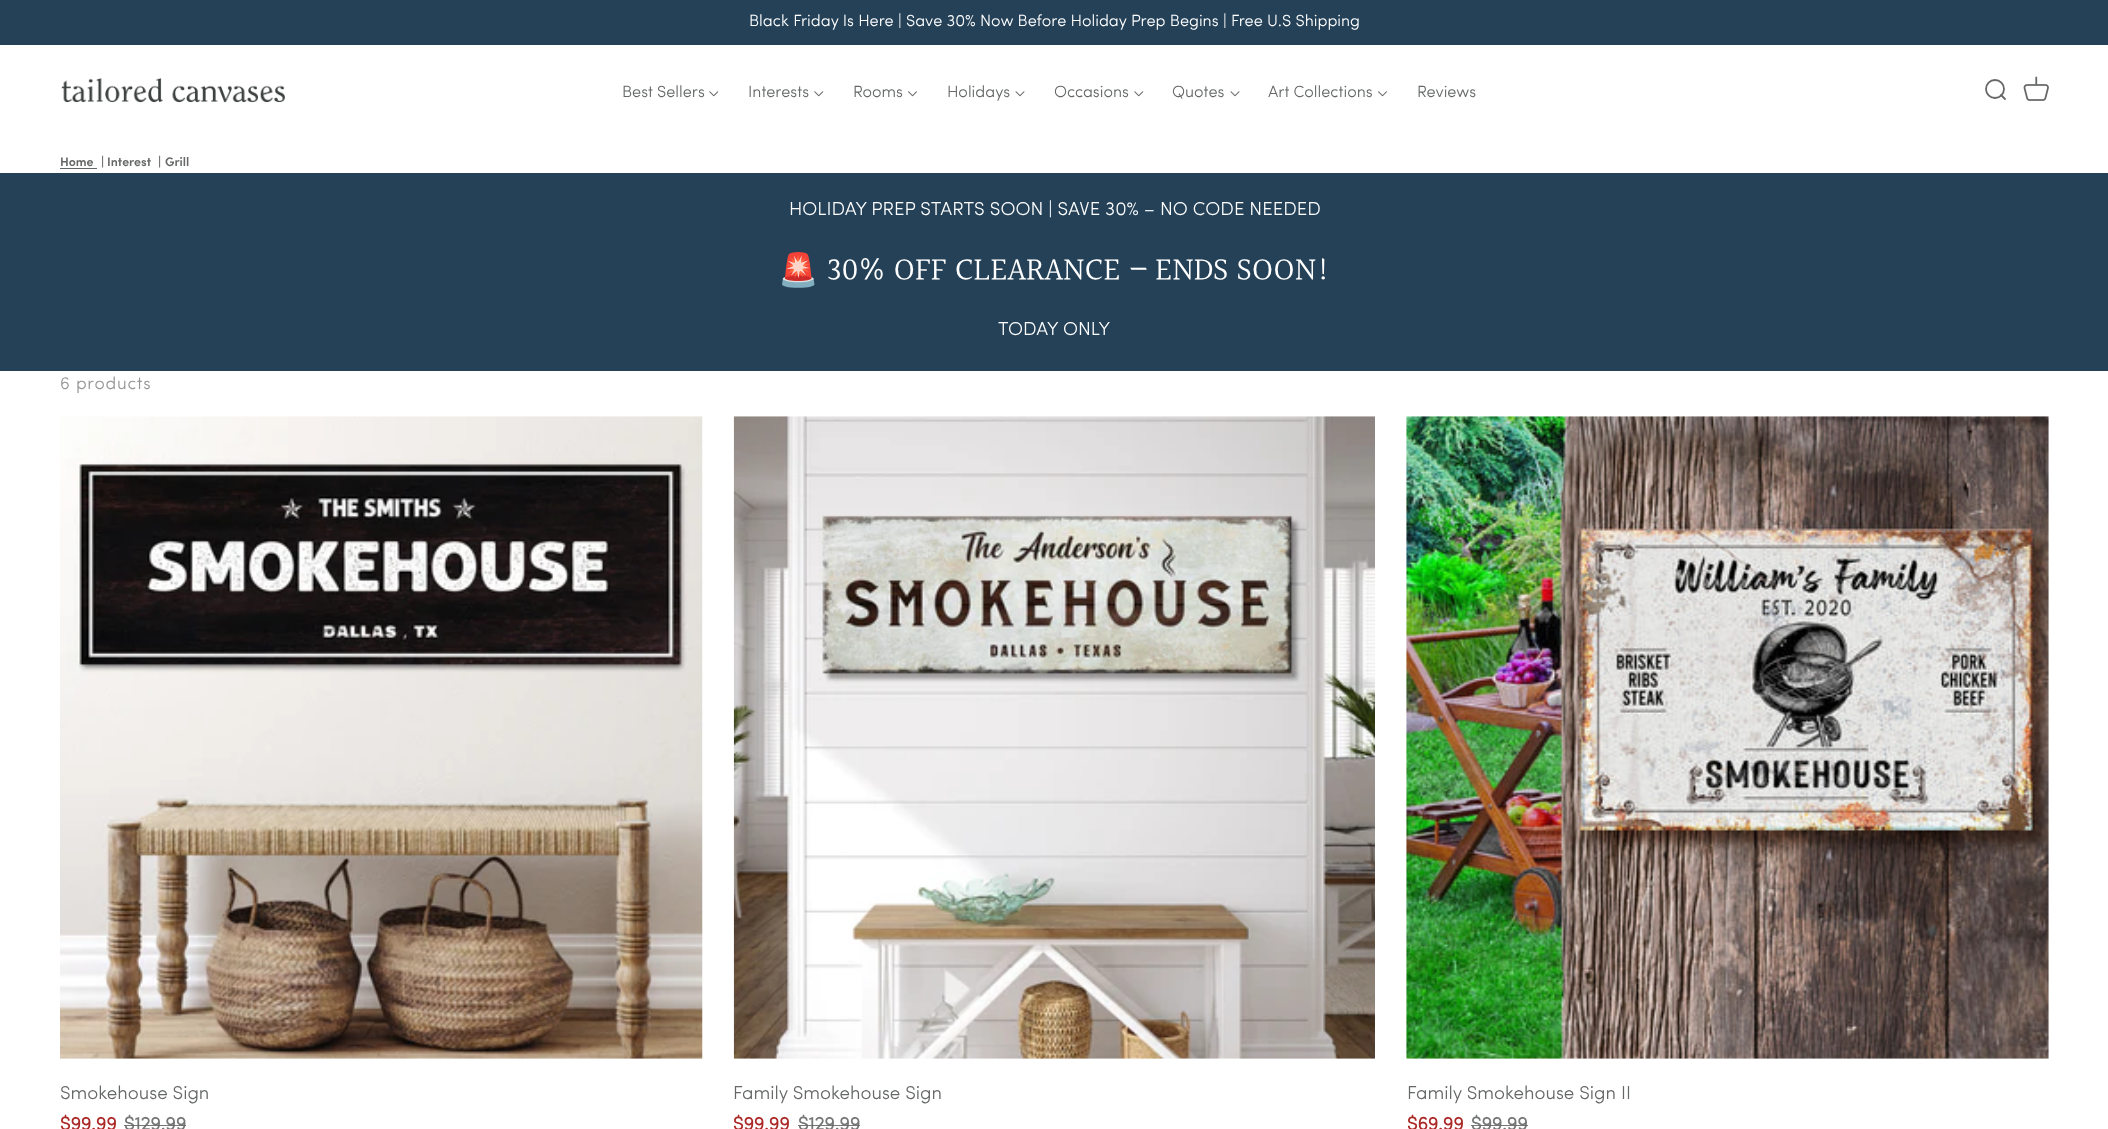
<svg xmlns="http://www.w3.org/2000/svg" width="2108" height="1129">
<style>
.a{font:300 16.25px Sofia;fill:#fff}
.b{font:300 16.25px Sofia;fill:#666868}
.c{font:600 12.5px Sofia;fill:#666868}
.d{font:bold 12.5px Sofia;fill:#666868}
.e{font:300 18.75px Sofia;fill:#fff}
.f{font:32.5px Noto Color Emoji;fill:#fff}
.g{font:32.5px Halant;fill:#fff}
.h{font:300 17.5px Sofia;letter-spacing:0.75px;fill:#949595}
.i{font:300 18.75px Sofia;fill:#666868}
.j{font:bold 18.75px Sofia;fill:#aa2826}
.k{font:bold 18.75px Sofia;fill:#757777}
</style>
<rect width="100%" height="100%" fill="#fff"/>
<path fill="#244158" d="M0 0h2108v45H0z"/>
<image href="1.png" x="61" y="78" width="224" height="25"/>
<image href="2.png" x="709" y="91" width="10" height="6"/>
<image href="2.png" x="814" y="91" width="10" height="6"/>
<image href="3.png" x="908" y="91" width="9" height="6"/>
<image href="4.png" x="1015" y="91" width="10" height="6"/>
<image href="2.png" x="1134" y="91" width="10" height="6"/>
<image href="4.png" x="1230" y="91" width="10" height="6"/>
<image href="3.png" x="1378" y="91" width="9" height="6"/>
<circle fill="none" stroke="#666868" stroke-width="1.8" cx="1995" cy="89" r="9"/>
<path fill="none" stroke="#666868" stroke-width="1.8" stroke-linecap="round" stroke-linejoin="round" d="M2001 95l4 4"/>
<image href="5.png" x="2023" y="76" width="26" height="25"/>
<path fill="#666868" d="M60 168h37v1H60z"/>
<path fill="#244158" d="M0 173h2108v198H0z"/>
<image href="6.png" x="60" y="416" width="643" height="643"/>
<image href="7.png" x="733" y="416" width="642" height="643"/>
<image href="8.png" x="1406" y="416" width="643" height="643"/>
<text class="a" x="749" y="26">Black Friday Is Here | Save 30% Now Before Holiday Prep Begins | Free U.S Shipping</text>
<text class="b" x="622" y="97">Best Sellers</text>
<text class="b" x="748" y="97">Interests</text>
<text class="b" x="853" y="97">Rooms</text>
<text class="b" x="947" y="97">Holidays</text>
<text class="b" x="1054" y="97">Occasions</text>
<text class="b" x="1172" y="97">Quotes</text>
<text class="b" x="1268" y="97">Art Collections</text>
<text class="b" x="1417" y="97">Reviews</text>
<text class="c" x="60" y="166">Home</text>
<text class="d" x="101" y="166">|</text>
<text class="c" x="107" y="166">Interest</text>
<text class="d" x="158" y="166">|</text>
<text class="c" x="165" y="166">Grill</text>
<text class="e" x="789" y="215">HOLIDAY PREP STARTS SOON | SAVE 30% – NO CODE NEEDED</text>
<text class="f" x="778" y="281">🚨</text>
<text class="g" x="827" y="281">30% OFF CLEARANCE – ENDS SOON!</text>
<text class="e" x="998" y="335">TODAY ONLY</text>
<text class="h" x="60" y="389">6 products</text>
<text class="i" x="60" y="1099">Smokehouse Sign</text>
<text class="j" x="60" y="1130">$99.99</text>
<text class="k" x="124" y="1130">$129.99</text>
<path fill="#666868e6" d="M124 1125h62v1H124z"/>
<text class="i" x="733" y="1099">Family Smokehouse Sign</text>
<text class="j" x="733" y="1130">$99.99</text>
<text class="k" x="798" y="1130">$129.99</text>
<path fill="#666868e6" d="M798 1125h62v1H798z"/>
<text class="i" x="1407" y="1099">Family Smokehouse Sign II</text>
<text class="j" x="1407" y="1130">$69.99</text>
<text class="k" x="1471" y="1130">$99.99</text>
<path fill="#666868e6" d="M1471 1125h57v1H1471z"/>
</svg>
